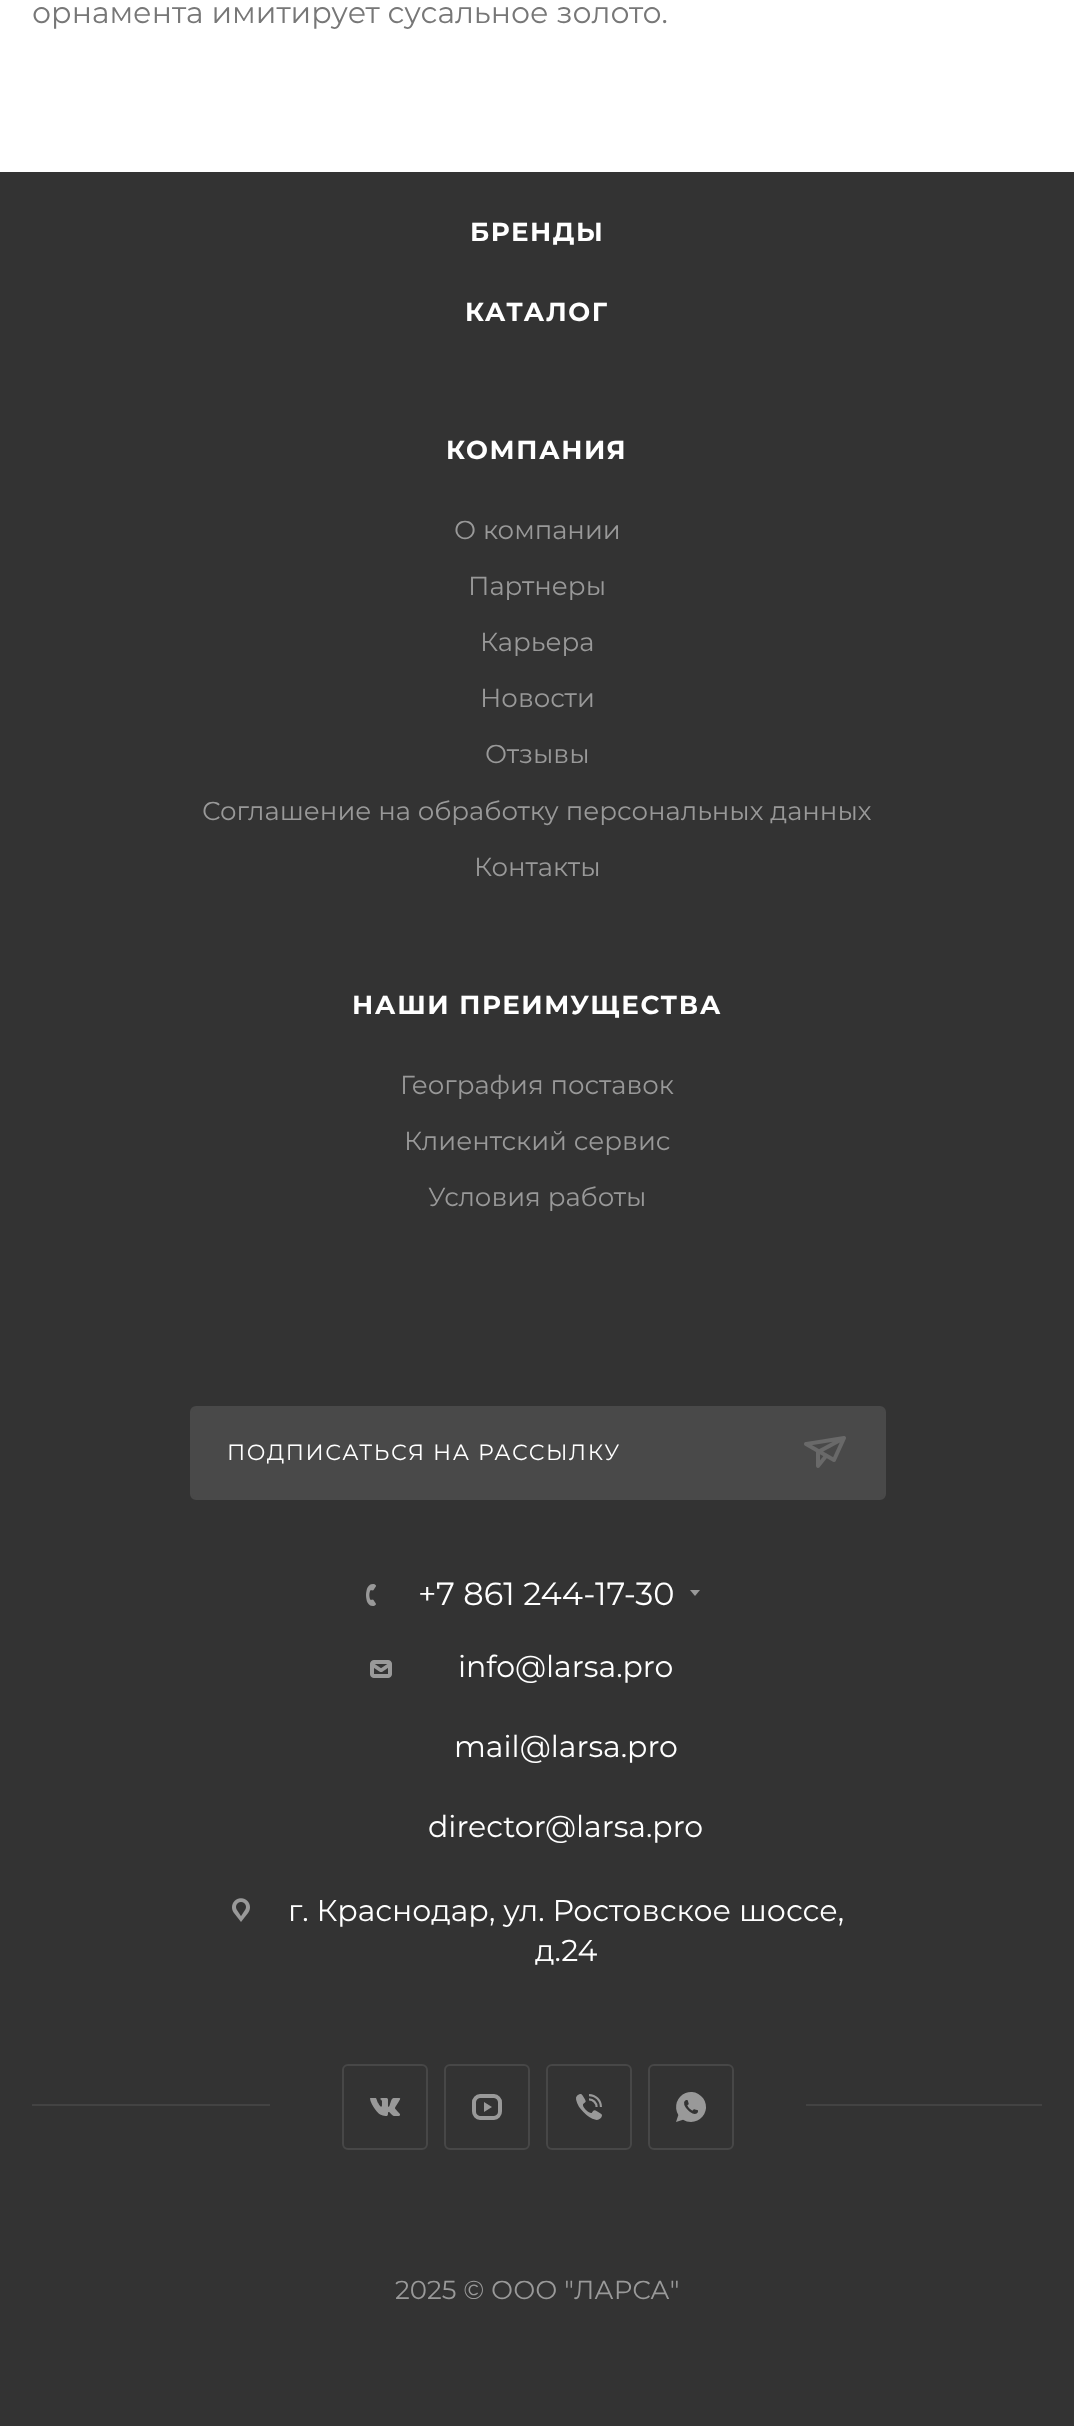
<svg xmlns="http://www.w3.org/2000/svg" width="1074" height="2426">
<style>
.a{font:30px Montserrat;fill:#777}
.b{font:bold 26px Montserrat;letter-spacing:1.6px;fill:#fff}
.c{font:26px Montserrat;fill:#999}
.d{font:22px Montserrat;letter-spacing:1.6px;fill:#fff}
.e{font:32px Montserrat;fill:#fff}
.f{font:30px Montserrat;fill:#fff}
</style>
<rect width="100%" height="100%" fill="#fff"/>
<path fill="#333" d="M0 172h1074v2254H0z"/>
<rect fill="#494949" stroke="#494949" stroke-width="2" x="191" y="1407" width="694" height="92" rx="5"/>
<image href="1.png" x="804" y="1436" width="42" height="32"/>
<image href="2.png" x="366" y="1584" width="10" height="22"/>
<path fill="#999" fill-rule="evenodd" d="M690 1590h10l-5 6z"/>
<image href="3.png" x="370" y="1660" width="22" height="18"/>
<image href="4.png" x="232" y="1898" width="18" height="24"/>
<path fill="#434343" d="M32 2104h1010v2H32z"/>
<path fill="#333" d="M270 2104h536v2H270z"/>
<image href="5.png" x="370" y="2098" width="31" height="18"/>
<rect fill="none" stroke="#474747" stroke-width="2" x="343" y="2065" width="84" height="84" rx="5"/>
<image href="6.png" x="472" y="2094" width="30" height="26"/>
<rect fill="none" stroke="#474747" stroke-width="2" x="445" y="2065" width="84" height="84" rx="5"/>
<image href="7.png" x="576" y="2094" width="26" height="26"/>
<rect fill="none" stroke="#474747" stroke-width="2" x="547" y="2065" width="84" height="84" rx="5"/>
<image href="8.png" x="676" y="2092" width="30" height="30"/>
<rect fill="none" stroke="#474747" stroke-width="2" x="649" y="2065" width="84" height="84" rx="5"/>
<text class="a" x="32" y="23">орнамента имитирует сусальное золото.</text>
<text class="b" x="470" y="241">БРЕНДЫ</text>
<text class="b" x="465" y="321">КАТАЛОГ</text>
<text class="b" x="446" y="459">КОМПАНИЯ</text>
<text class="c" x="454" y="539">О компании</text>
<text class="c" x="468" y="595">Партнеры</text>
<text class="c" x="480" y="651">Карьера</text>
<text class="c" x="480" y="707">Новости</text>
<text class="c" x="485" y="763">Отзывы</text>
<text class="c" x="202" y="820">Соглашение на обработку персональных данных</text>
<text class="c" x="474" y="876">Контакты</text>
<text class="b" x="352" y="1014">НАШИ ПРЕИМУЩЕСТВА</text>
<text class="c" x="400" y="1094">География поставок</text>
<text class="c" x="404" y="1150">Клиентский сервис</text>
<text class="c" x="428" y="1206">Условия работы</text>
<text class="d" x="227" y="1460">ПОДПИСАТЬСЯ НА РАССЫЛКУ</text>
<text class="e" x="418" y="1605">+7 861 244-17-30</text>
<text class="f" x="458" y="1677">info@larsa.pro</text>
<text class="f" x="454" y="1757">mail@larsa.pro</text>
<text class="f" x="428" y="1837">director@larsa.pro</text>
<text class="f" x="288" y="1921">г. Краснодар, ул. Ростовское шоссе,</text>
<text class="f" x="535" y="1961">д.24</text>
<text class="c" x="395" y="2299">2025 © ООО "ЛАРСА"</text>
</svg>
